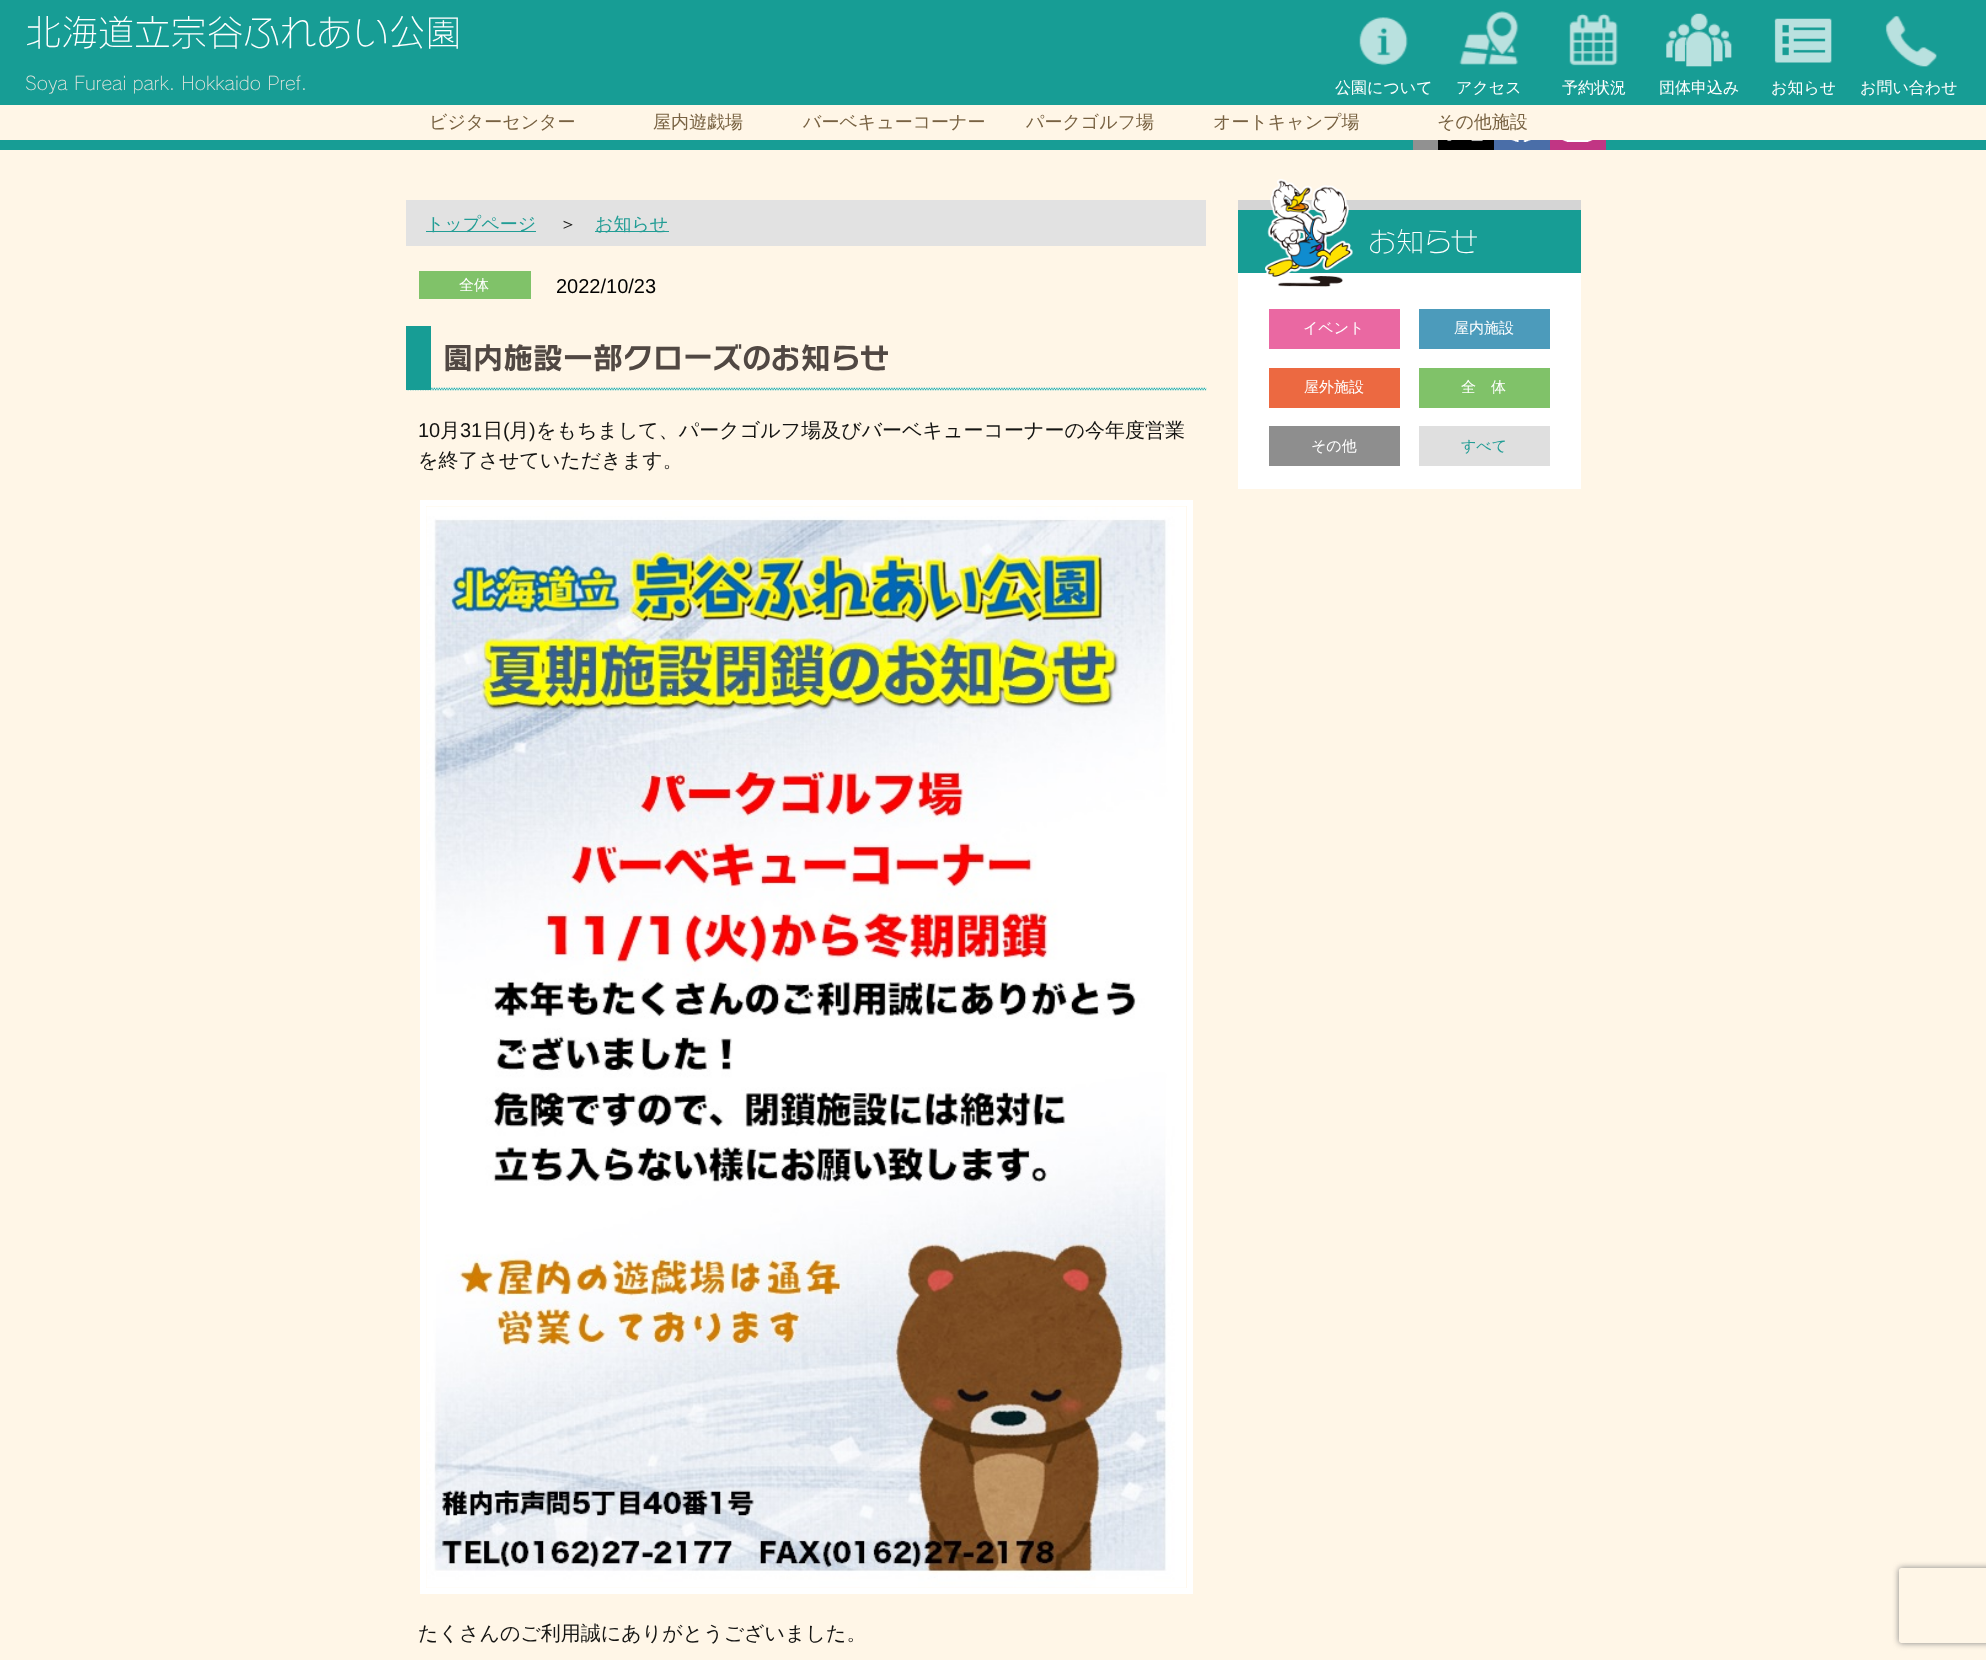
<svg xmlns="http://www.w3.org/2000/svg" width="1986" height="1660">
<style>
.a{font:300 36.4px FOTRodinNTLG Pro;fill:#fff}
.b{font:300 18.25px FOTRodinNTLG Pro;fill:#e6e6df}
.c{font:500 16px WenQuanYi Zen Hei;fill:#fff}
.d{font:500 18px WenQuanYi Zen Hei;fill:#786242}
.e{font:500 18px WenQuanYi Zen Hei;fill:#229d95}
.f{font:500 18px WenQuanYi Zen Hei;fill:#141412}
.g{font:500 15px WenQuanYi Zen Hei;fill:#fff}
.h{font:20px Liberation Sans;fill:#000}
.i{font:bold 30px FOTRodinNTLG Pro;fill:#514843}
.j{font:20px Liberation Sans;fill:#141412}
.k{font:500 20px WenQuanYi Zen Hei;fill:#141412}
.l{font:300 28px FOTRodinNTLG Pro;fill:#fff}
.m{font:500 15px WenQuanYi Zen Hei;fill:#229d95}
</style>
<defs>
<clipPath id="clip1"><path d="M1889 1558h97v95h-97zm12.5 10h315c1.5 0 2.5 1 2.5 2.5v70c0 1.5-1 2.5-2.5 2.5h-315c-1.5 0-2.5-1-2.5-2.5v-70c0-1.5 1-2.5 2.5-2.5z" clip-rule="evenodd"/></clipPath>
</defs>
<rect width="100%" height="100%" fill="#179d95"/>
<image href="1.png" x="1359" y="17" width="49" height="49"/>
<image href="2.png" x="1459" y="11" width="60" height="54"/>
<image href="3.png" x="1569" y="13" width="49" height="53"/>
<image href="4.png" x="1666" y="13" width="66" height="54"/>
<image href="5.png" x="1774" y="18" width="58" height="45"/>
<image href="6.png" x="1885" y="15" width="52" height="52"/>
<path fill="#fff6e7" d="M0 105h1986v35H0z"/>
<path fill="#919191" d="M1413 140h25v10H1413z"/>
<path fill="#000" d="M1438 140h56v10H1438z"/>
<image href="7.png" x="1447" y="140" width="36" height="2"/>
<path fill="#4a6ea8" d="M1494 140h56v10H1494z"/>
<image href="8.png" x="1511" y="140" width="20" height="2"/>
<path fill="#c13584" d="M1550 140h56v10H1550z"/>
<image href="9.png" x="1562" y="140" width="31" height="2"/>
<path fill="#fff6e7" d="M0 150h1986v1510H0z"/>
<path fill="#e2e2e2" d="M406 200h800v46H406z"/>
<path fill="#229d95" d="M426 231h110v1H426z"/>
<path fill="#229d95" d="M595 231h74v1H595z"/>
<path fill="#80c269" d="M419 271h112v28H419z"/>
<image href="10.png" x="406" y="387" width="801" height="4"/>
<path fill="#179d95" d="M406 326h25v64H406z"/>
<path fill="none" stroke="#fff" stroke-width="6" d="M423 503h767v1088H423z"/>
<image href="11.png" x="426" y="506" width="761" height="1082"/>
<path fill="#fff" d="M1238 273h343v216H1238z"/>
<path fill="#179d95" d="M1238 210h343v63H1238z"/>
<path fill="#d5d5d5" d="M1238 200h343v10H1238z"/>
<image href="12.png" x="1265" y="179" width="88" height="108"/>
<path fill="#ea68a2" d="M1269 309h131v40H1269z"/>
<path fill="#4c9bbb" d="M1419 309h131v40H1419z"/>
<path fill="#ec6941" d="M1269 368h131v40H1269z"/>
<path fill="#80c269" d="M1419 368h131v40H1419z"/>
<path fill="#8e8e8e" d="M1269 426h131v40H1269z"/>
<path fill="#dfdfdf" d="M1419 426h131v40H1419z"/>
<g clip-path="url(#clip1)">
<rect fill="#808080" filter="blur(3px)" x="1899" y="1568" width="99" height="75" rx="2.5"/>
</g>
<text class="a" x="25" y="46">北海道立宗谷ふれあい公園</text>
<text class="b" x="25" y="90">Soya Fureai park. Hokkaido Pref.</text>
<text class="c" x="1335" y="93">公園について</text>
<text class="c" x="1456" y="93">アクセス</text>
<text class="c" x="1562" y="93">予約状況</text>
<text class="c" x="1659" y="93">団体申込み</text>
<text class="c" x="1771" y="93">お知らせ</text>
<text class="c" x="1860" y="93">お問い合わせ</text>
<text class="d" x="429" y="128">ビジターセンター</text>
<text class="d" x="653" y="128">屋内遊戯場</text>
<text class="d" x="803" y="128">バーベキューコーナー</text>
<text class="d" x="1026" y="128">パークゴルフ場</text>
<text class="d" x="1213" y="128">オートキャンプ場</text>
<text class="d" x="1437" y="128">その他施設</text>
<text class="e" x="426" y="230">トップページ</text>
<text class="f" x="559" y="230">＞</text>
<text class="e" x="595" y="230">お知らせ</text>
<text class="g" x="459" y="290">全体</text>
<text class="h" x="556" y="293">2022/10/23</text>
<text class="i" x="443" y="369">園内施設一部クローズのお知らせ</text>
<text class="j" x="418" y="437">10</text>
<text class="k" x="440" y="437">月</text>
<text class="j" x="460" y="437">31</text>
<text class="k" x="483" y="437">日</text>
<text class="j" x="503" y="437">(</text>
<text class="k" x="509" y="437">月</text>
<text class="j" x="529" y="437">)</text>
<text class="k" x="536" y="437">をもちまして、パークゴルフ場及びバーベキューコーナーの今年度営業</text>
<text class="k" x="418" y="467">を終了させていただきます。</text>
<text class="k" x="418" y="1640">たくさんのご利用誠にありがとうございました。</text>
<text class="l" x="1368" y="252">お知らせ</text>
<text class="g" x="1303" y="333">イベント</text>
<text class="g" x="1454" y="333">屋内施設</text>
<text class="g" x="1304" y="392">屋外施設</text>
<text class="g" x="1461" y="392">全　体</text>
<text class="g" x="1311" y="451">その他</text>
<text class="m" x="1461" y="451">すべて</text>
</svg>
